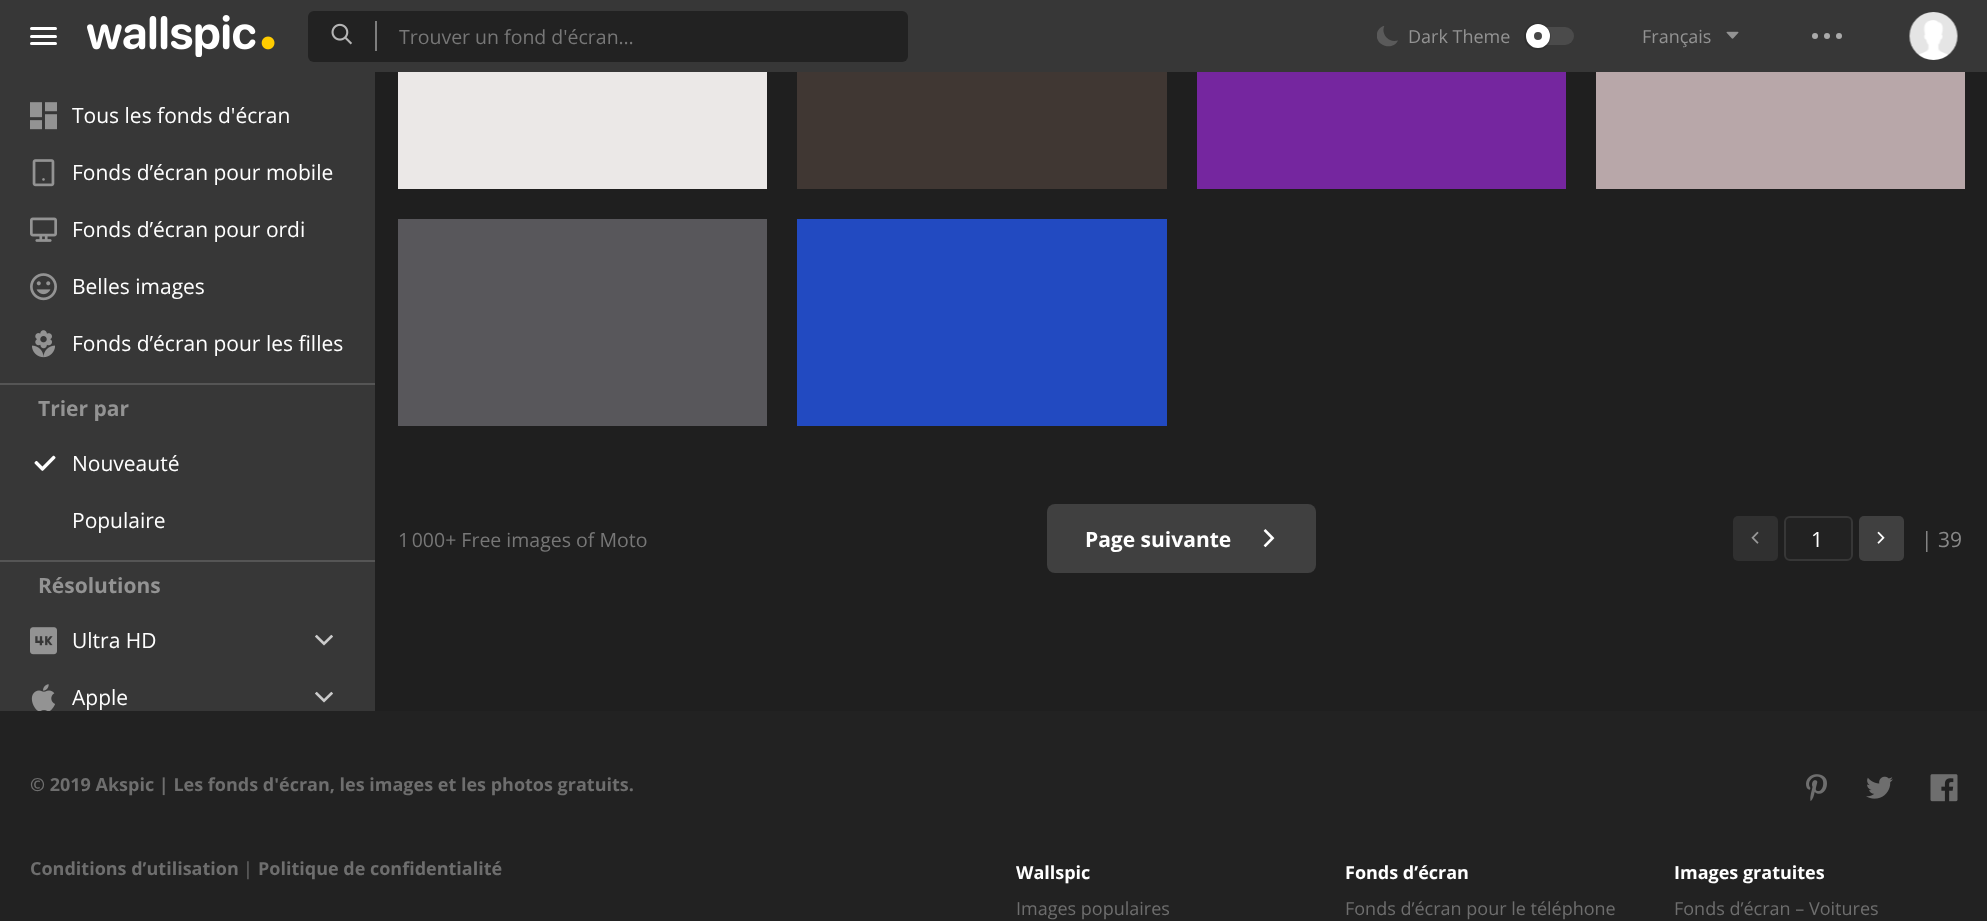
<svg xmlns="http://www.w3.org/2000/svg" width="1987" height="921">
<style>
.a{font:19.5px Open Sans;fill:#777}
.b{font:18px Open Sans;fill:#939393}
.c{font:21px Open Sans;fill:#fff}
.d{font:bold 21px Open Sans;fill:#939393}
.e{font:bold 21px Open Sans;fill:#fff}
.f{font:21px Open Sans;fill:#888}
.g{font:bold 18px Open Sans;fill:#6e6e6e}
.h{font:18px Open Sans;fill:#6e6e6e}
.i{font:bold 18px Open Sans;fill:#fff}
</style>
<defs>
<clipPath id="clip1"><path d="M1377 26h21v21H1377z"/></clipPath>
</defs>
<rect width="100%" height="100%" fill="#1f1f1f"/>
<path fill="#373737" d="M0 0h1987v72H0z"/>
<rect fill="#fff" x="30" y="27" width="27" height="3" rx="1.5"/>
<rect fill="#fff" x="30" y="35" width="27" height="3" rx="1.5"/>
<rect fill="#fff" x="30" y="42" width="27" height="3" rx="1.5"/>
<image href="1.png" x="87" y="15" width="188" height="42"/>
<rect fill="#222" x="308" y="11" width="600" height="51" rx="6"/>
<image href="2.png" x="331" y="23" width="21" height="22"/>
<path fill="#7e7e7e" d="M375 21h2v30H375z"/>
<g clip-path="url(#clip1)">
<path fill="#5a5a5a" d="M1394.5 41c-8 0-13.5-8.5-10-15.5c-2.5 1-5 2.5-6.5 5c-6.5 13 13.5 22.5 20 10z"/>
</g>
<rect fill="#4b4b4b" x="1526" y="27" width="48" height="18" rx="9"/>
<circle fill="none" stroke="#00000026" stroke-width="2" cx="1537.5" cy="36.5" r="12.5"/>
<circle fill="#474747" stroke="#fff" stroke-width="8" cx="1538" cy="36" r="8"/>
<image href="3.png" x="1726" y="31" width="13" height="8"/>
<circle fill="#aaa" cx="1815" cy="36" r="3"/>
<circle fill="#aaa" cx="1827" cy="36" r="3"/>
<circle fill="#aaa" cx="1839" cy="36" r="3"/>
<image href="4.png" x="1909" y="12" width="49" height="48"/>
<path fill="#373737" d="M0 72h375v639H0z"/>
<image href="5.png" x="30" y="102" width="27" height="28"/>
<image href="6.png" x="32" y="159" width="23" height="28"/>
<image href="7.png" x="30" y="217" width="27" height="25"/>
<image href="8.png" x="30" y="273" width="27" height="28"/>
<image href="9.png" x="32" y="330" width="23" height="28"/>
<path fill="#555" d="M0 383h375v2H0z"/>
<image href="10.png" x="34" y="455" width="22" height="16"/>
<path fill="#555" d="M0 560h375v2H0z"/>
<image href="11.png" x="30" y="627" width="27" height="28"/>
<image href="12.png" x="315" y="634" width="18" height="12"/>
<image href="13.png" x="31" y="684" width="24" height="27"/>
<image href="12.png" x="315" y="691" width="18" height="12"/>
<path fill="#ebe8e7" d="M398 72h369v117H398z"/>
<path fill="#58575b" d="M398 219h369v207H398z"/>
<path fill="#403733" d="M797 72h370v117H797z"/>
<path fill="#224ac1" d="M797 219h370v207H797z"/>
<path fill="#75269f" d="M1197 72h369v117H1197z"/>
<path fill="#b8a7a9" d="M1596 72h369v117H1596z"/>
<rect fill="#404040" x="1047" y="504" width="269" height="69" rx="8"/>
<image href="14.png" x="1263" y="529" width="12" height="19"/>
<rect fill="#303030" x="1733" y="516" width="45" height="45" rx="5"/>
<image href="15.png" x="1751" y="531" width="8" height="13"/>
<rect fill="#222" stroke="#373737" stroke-width="2" x="1785" y="517" width="67" height="43" rx="5"/>
<rect fill="#404040" x="1859" y="516" width="45" height="45" rx="5"/>
<image href="16.png" x="1877" y="531" width="8" height="13"/>
<path fill="#222" d="M0 711h1987v210H0z"/>
<image href="17.png" x="1806" y="774" width="21" height="27"/>
<image href="18.png" x="1866" y="776" width="27" height="23"/>
<image href="19.png" x="1930" y="774" width="28" height="28"/>
<text class="a" x="399" y="44">Trouver un fond d'écran…</text>
<text class="b" x="1408" y="43">Dark Theme</text>
<text class="b" x="1642" y="43">Français</text>
<text class="c" x="72" y="123">Tous les fonds d'écran</text>
<text class="c" x="72" y="180">Fonds d’écran pour mobile</text>
<text class="c" x="72" y="237">Fonds d’écran pour ordi</text>
<text class="c" x="72" y="294">Belles images</text>
<text class="c" x="72" y="351">Fonds d’écran pour les filles</text>
<text class="d" x="38" y="416">Trier par</text>
<text class="c" x="72" y="471">Nouveauté</text>
<text class="c" x="72" y="528">Populaire</text>
<text class="d" x="38" y="593">Résolutions</text>
<text class="c" x="72" y="648">Ultra HD</text>
<text class="c" x="72" y="705">Apple</text>
<text class="a" x="398" y="547">1 000+ Free images of Moto</text>
<text class="e" x="1085" y="547">Page suivante</text>
<text class="c" x="1811" y="547">1</text>
<text class="f" x="1921" y="547">| 39</text>
<text class="g" x="30" y="791">© 2019 Akspic | Les fonds d'écran, les images et les photos gratuits.</text>
<text class="g" x="30" y="875">Conditions d’utilisation</text>
<text class="h" x="243" y="875">|</text>
<text class="g" x="258" y="875">Politique de confidentialité</text>
<text class="i" x="1016" y="879">Wallspic</text>
<text class="h" x="1016" y="915">Images populaires</text>
<text class="i" x="1345" y="879">Fonds d’écran</text>
<text class="h" x="1345" y="915">Fonds d’écran pour le téléphone</text>
<text class="i" x="1674" y="879">Images gratuites</text>
<text class="h" x="1674" y="915">Fonds d’écran – Voitures</text>
</svg>
